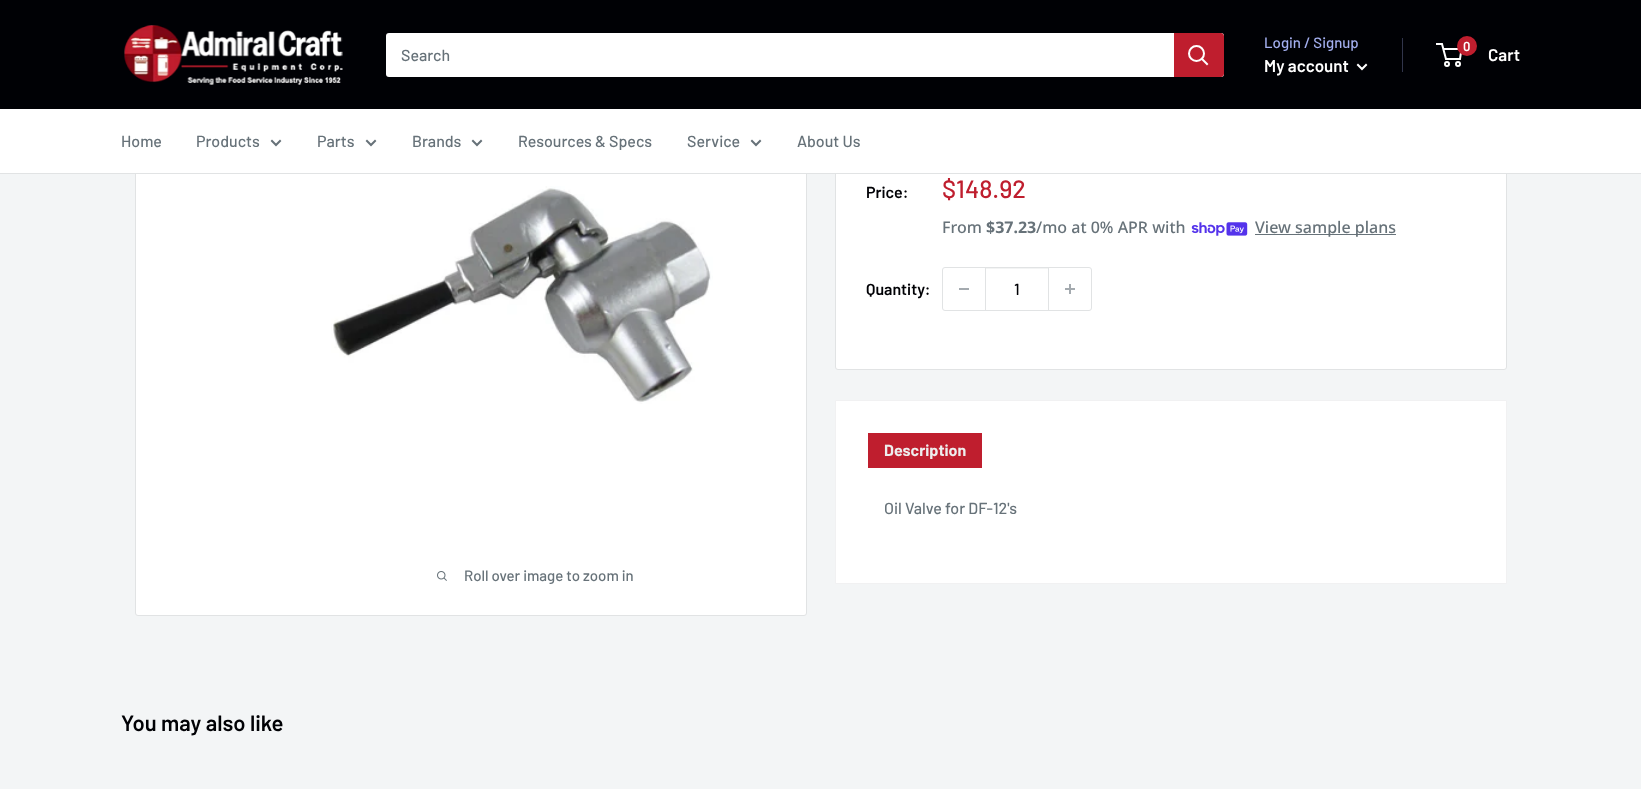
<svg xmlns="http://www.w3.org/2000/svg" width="1641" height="789">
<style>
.a{font:500 16px Barlow;fill:#677279}
.b{font:500 15px Barlow;fill:#a3afef}
.c{font:600 17px Barlow;fill:#fff}
.d{font:600 13px Barlow;fill:#fff}
.e{font:600 16px Barlow;fill:#000105}
.f{font:500 25px Barlow;fill:#bf1e2e}
.g{font:500 16px Noto Sans;fill:#677279}
.h{font:bold 16px Noto Sans;fill:#677279}
.i{font:500 16px Barlow;fill:#000105}
.j{font:bold 16px Barlow;fill:#eee}
.k{font:500 15px Barlow;fill:#677279}
.l{font:600 22px Barlow;fill:#000105}
</style>
<rect width="100%" height="100%" fill="#f3f5f6"/>
<rect fill="#fff" stroke="#e1e3e4" x="835.5" y="24.5" width="671" height="345" rx="2.5"/>
<rect fill="#fff" stroke="#e1e3e4" x="135.5" y="24.5" width="671" height="591" rx="2.5"/>
<path fill="#000105" d="M0 0h1641v109H0z"/>
<image href="1.png" x="124" y="25" width="219" height="60"/>
<rect fill="#fff" x="386" y="33" width="838" height="44" rx="3"/>
<path fill="#bf1e2e" d="M1174 33h47c1.5 0 3 1.5 3 3v38c0 1.5-1.5 3-3 3h-47z"/>
<path fill="none" stroke="#fff" stroke-width="2" stroke-linecap="square" d="M1207 64l-5-5"/>
<circle fill="none" stroke="#fff" stroke-width="2" cx="1196.5" cy="53.5" r="7.5"/>
<path fill="#31354b" d="M1402 38h1v34H1402z"/>
<path fill="none" stroke="#fff" stroke-width="2" stroke-linecap="square" d="M1366 65l-4 4l-4-4"/>
<circle fill="none" stroke="#fff" stroke-width="2" cx="1447" cy="64" r="2"/>
<circle fill="none" stroke="#fff" stroke-width="2" cx="1458" cy="64" r="2"/>
<path fill="none" stroke="#fff" stroke-width="2" d="M1443.5 49h18l-1.5 10h-14l-4-15h-6"/>
<circle fill="#bf1e2e" cx="1467" cy="46" r="10"/>
<path fill="#fff" d="M0 109h1641v64H0z"/>
<path fill="#e1e3e4" d="M0 173h1641v1H0z"/>
<path fill="none" stroke="#677279" stroke-width="2" stroke-linecap="square" d="M280 141l-4 4l-4-4"/>
<path fill="none" stroke="#677279" stroke-width="2" stroke-linecap="square" d="M375 141l-4 4l-4-4"/>
<path fill="none" stroke="#677279" stroke-width="2" stroke-linecap="square" d="M481 141l-4 4l-4-4"/>
<path fill="none" stroke="#677279" stroke-width="2" stroke-linecap="square" d="M760 141l-4 4l-4-4"/>
<image href="2.png" x="1191" y="222" width="57" height="14"/>
<path fill="#677279" d="M1255 234h141v1H1255z"/>
<rect fill="none" stroke="#e1e3e4" x="942.5" y="267.5" width="149" height="43" rx="2.5"/>
<path fill="#a4aaaf" d="M959 288h10v2H959z"/>
<path fill="#f3f4f4" d="M986 268h62v1H986z"/>
<path fill="#e1e3e4" d="M1048 268h1v42H1048z"/>
<path fill="#e1e3e4" d="M985 268h1v42H985z"/>
<image href="3.png" x="1065" y="284" width="10" height="10"/>
<path fill="#fff" stroke="#f1f1f2" d="M835.5 400.5h671v183H835.5z"/>
<path fill="#bf1e2e" d="M868 433h114v35H868z"/>
<image href="4.png" x="331" y="186" width="382" height="218"/>
<image href="5.png" x="437" y="571" width="10" height="10"/>
<text class="a" x="401" y="61">Search</text>
<text class="b" x="1264" y="48">Login / Signup</text>
<text class="c" x="1264" y="72">My account</text>
<text class="d" x="1463" y="51">0</text>
<text class="c" x="1488" y="61">Cart</text>
<text class="a" x="121" y="147">Home</text>
<text class="a" x="196" y="147">Products</text>
<text class="a" x="317" y="147">Parts</text>
<text class="a" x="412" y="147">Brands</text>
<text class="a" x="518" y="147">Resources &amp; Specs</text>
<text class="a" x="687" y="147">Service</text>
<text class="a" x="797" y="147">About Us</text>
<text class="e" x="866" y="198">Price:</text>
<text class="f" x="942" y="198">$148.92</text>
<text class="g" x="942" y="233">From</text>
<text class="h" x="986" y="233">$37.23</text>
<text class="g" x="1036" y="233">/mo at 0% APR with</text>
<text class="g" x="1255" y="233">View sample plans</text>
<text class="e" x="866" y="295">Quantity:</text>
<text class="i" x="1014" y="295">1</text>
<text class="j" x="884" y="456">Description</text>
<text class="a" x="884" y="514">Oil Valve for DF-12's</text>
<text class="k" x="464" y="581">Roll over image to zoom in</text>
<text class="l" x="121" y="731">You may also like</text>
</svg>
